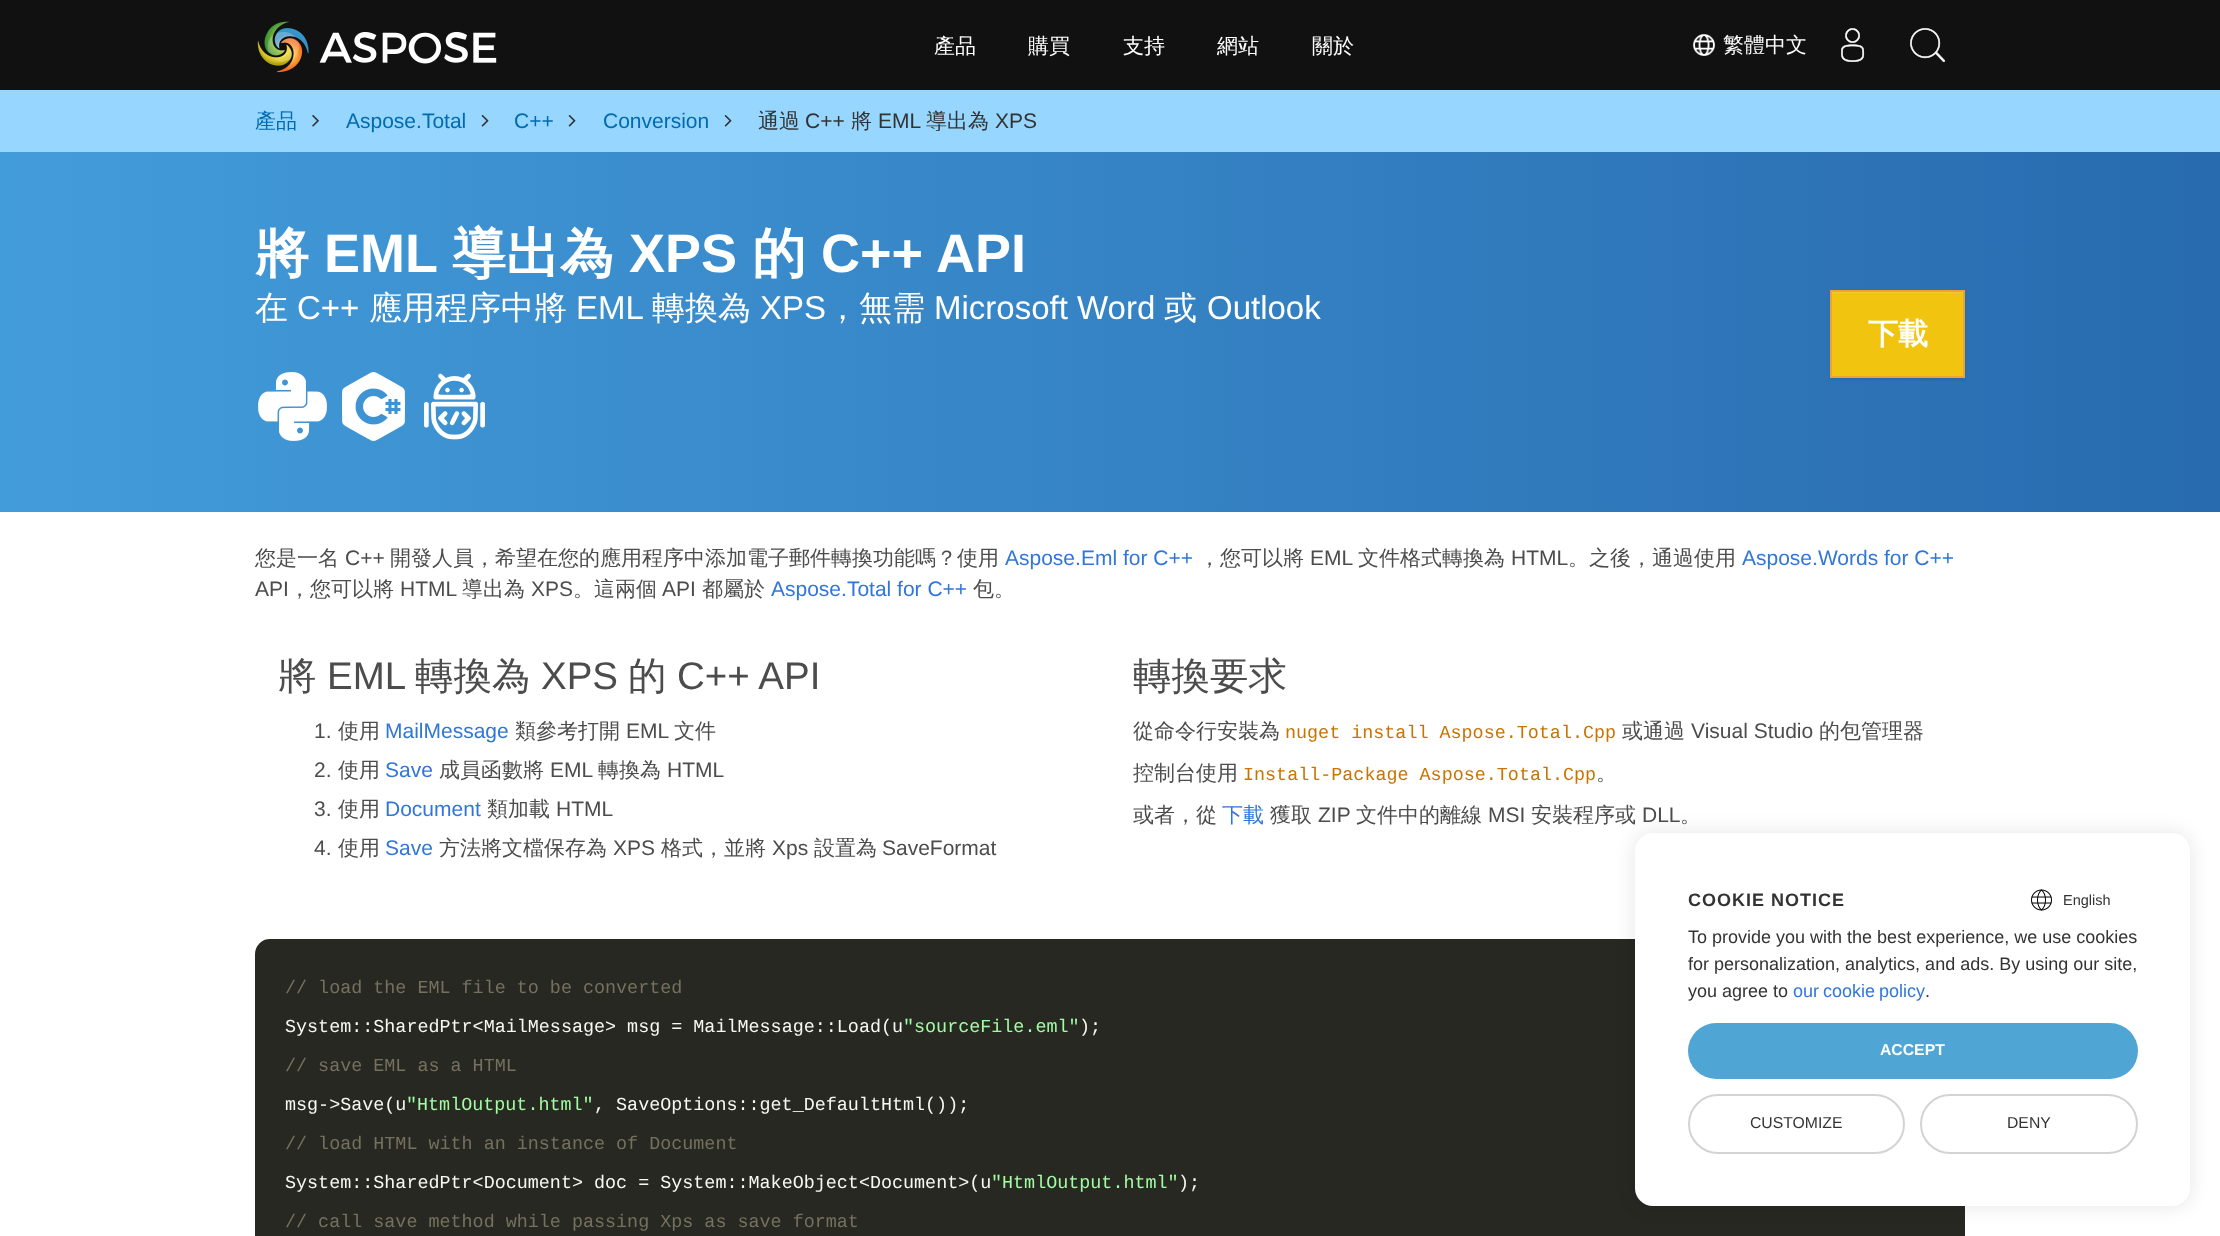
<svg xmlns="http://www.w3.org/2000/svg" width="2220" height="1236">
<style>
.a{font:500 21px WenQuanYi Zen Hei;fill:#fff}
.b{font:500 21px WenQuanYi Zen Hei;fill:#006bb0}
.c{font:21px Liberation Sans;fill:#006bb0}
.d{font:500 21px WenQuanYi Zen Hei;fill:#333}
.e{font:21px Liberation Sans;fill:#333}
.f{font:bold 54px WenQuanYi Zen Hei;fill:#fff}
.g{font:bold 54px Liberation Sans;fill:#fff}
.h{font:500 33px WenQuanYi Zen Hei;fill:#fff}
.i{font:33px Liberation Sans;fill:#fff}
.j{font:bold 30px WenQuanYi Zen Hei;fill:#fff}
.k{font:500 21px WenQuanYi Zen Hei;fill:#4c4c4c}
.l{font:21px Liberation Sans;fill:#4c4c4c}
.m{font:21px Liberation Sans;fill:#3176d9}
.n{font:500 38.5px WenQuanYi Zen Hei;fill:#4c4c4c}
.o{font:38.5px Liberation Sans;fill:#4c4c4c}
.p{font:18.4px Liberation Mono;fill:#c97300}
.q{font:500 21px WenQuanYi Zen Hei;fill:#3176d9}
.r{font:18.4px Liberation Mono;fill:#75715e}
.s{font:18.4px Liberation Mono;fill:#f8f8f2}
.t{font:18.4px Liberation Mono;fill:#a2fca2}
.u{font:bold 18px Liberation Sans;letter-spacing:1px;fill:#333}
.v{font:14.5px Liberation Sans;fill:#333}
.w{font:18px Liberation Sans;fill:#333}
.x{font:18px Liberation Sans;fill:#3176d9}
.y{font:bold 15.75px Liberation Sans;fill:#fff}
.z{font:15.75px Liberation Sans;fill:#333}
</style>
<defs>
<linearGradient id="g1" gradientUnits="userSpaceOnUse" x1="0" y1="332" x2="2220" y2="331"><stop offset="0" stop-color="#439cda"/><stop offset="1" stop-color="#286baf"/></linearGradient>
</defs>
<rect width="100%" height="100%" fill="#fff"/>
<path fill="#111" d="M0 0h2220v90H0z"/>
<image href="1.png" x="257" y="21" width="240" height="52"/>
<image href="2.png" x="1693" y="34" width="22" height="22"/>
<image href="3.png" x="1841" y="28" width="24" height="34"/>
<image href="4.png" x="1910" y="28" width="35" height="35"/>
<path fill="#97d6ff" d="M0 90h2220v62H0z"/>
<image href="5.png" x="312" y="115" width="7" height="12"/>
<image href="6.png" x="481" y="115" width="8" height="12"/>
<image href="6.png" x="568" y="115" width="8" height="12"/>
<image href="6.png" x="724" y="115" width="8" height="12"/>
<path fill="url(#g1)" d="M0 152h2220v360H0z"/>
<image href="7.png" x="258" y="372" width="69" height="69"/>
<image href="8.png" x="342" y="372" width="63" height="69"/>
<image href="9.png" x="424" y="373" width="61" height="67"/>
<path fill="#00000012" filter="blur(1px)" d="M1830 291h135v89H1830z"/>
<path fill="#f1c40f" d="M1832 293h131v83H1832z"/>
<path fill="#f3cd33" d="M1832 292h132v1H1832z"/>
<path fill="none" stroke="#eea236" stroke-width="2" d="M1831 291h133v86H1831z"/>
<rect fill="#272822" x="255" y="939" width="1710" height="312" rx="15"/>
<rect fill="#0000001a" filter="blur(10px)" x="1635" y="833" width="555" height="373" rx="18"/>
<rect fill="#fff" x="1635" y="833" width="555" height="373" rx="18"/>
<image href="10.png" x="2031" y="889" width="21" height="22"/>
<rect fill="#4fa5d3" x="1688" y="1023" width="450" height="56" rx="28"/>
<rect fill="none" stroke="#d3d3d3" stroke-width="2" x="1689" y="1095" width="215" height="58" rx="29"/>
<rect fill="none" stroke="#d3d3d3" stroke-width="2" x="1921" y="1095" width="216" height="58" rx="29"/>
<text class="a" x="934" y="53">產品</text>
<text class="a" x="1028" y="53">購買</text>
<text class="a" x="1123" y="53">支持</text>
<text class="a" x="1217" y="53">網站</text>
<text class="a" x="1312" y="53">關於</text>
<text class="a" x="1723" y="52">繁體中文</text>
<text class="b" x="255" y="128">產品</text>
<text class="c" x="346" y="128">Aspose.Total</text>
<text class="c" x="514" y="128">C++</text>
<text class="c" x="603" y="128">Conversion</text>
<text class="d" x="758" y="128">通過</text>
<text class="e" x="805" y="128">C++</text>
<text class="d" x="851" y="128">將</text>
<text class="e" x="878" y="128">EML</text>
<text class="d" x="926" y="128">導出為</text>
<text class="e" x="995" y="128">XPS</text>
<text class="f" x="255" y="272">將</text>
<text class="g" x="324" y="272">EML</text>
<text class="f" x="452" y="272">導出為</text>
<text class="g" x="629" y="272">XPS</text>
<text class="f" x="752" y="272">的</text>
<text class="g" x="821" y="272">C++ API</text>
<text class="h" x="255" y="319">在</text>
<text class="i" x="297" y="319">C++</text>
<text class="h" x="369" y="319">應用程序中將</text>
<text class="i" x="576" y="319">EML</text>
<text class="h" x="652" y="319">轉換為</text>
<text class="i" x="760" y="319">XPS</text>
<text class="h" x="826" y="319">，無需</text>
<text class="i" x="934" y="319">Microsoft Word</text>
<text class="h" x="1164" y="319">或</text>
<text class="i" x="1207" y="319">Outlook</text>
<text class="j" x="1868" y="344">下載</text>
<text class="k" x="255" y="565">您是一名</text>
<text class="l" x="345" y="565">C++</text>
<text class="k" x="390" y="565">開發人員，希望在您的應用程序中添加電子郵件轉換功能嗎？使用</text>
<text class="m" x="1005" y="565">Aspose.Eml for C++</text>
<text class="k" x="1199" y="565">，您可以將</text>
<text class="l" x="1310" y="565">EML</text>
<text class="k" x="1358" y="565">文件格式轉換為</text>
<text class="l" x="1511" y="565">HTML</text>
<text class="k" x="1568" y="565">。之後，通過使用</text>
<text class="m" x="1742" y="565">Aspose.Words for C++</text>
<text class="l" x="255" y="596">API</text>
<text class="k" x="289" y="596">，您可以將</text>
<text class="l" x="400" y="596">HTML</text>
<text class="k" x="462" y="596">導出為</text>
<text class="l" x="531" y="596">XPS</text>
<text class="k" x="573" y="596">。這兩個</text>
<text class="l" x="662" y="596">API</text>
<text class="k" x="702" y="596">都屬於</text>
<text class="m" x="771" y="596">Aspose.Total for C++</text>
<text class="k" x="973" y="596">包。</text>
<text class="n" x="278" y="689">將</text>
<text class="o" x="327" y="689">EML</text>
<text class="n" x="415" y="689">轉換為</text>
<text class="o" x="541" y="689">XPS</text>
<text class="n" x="628" y="689">的</text>
<text class="o" x="677" y="689">C++ API</text>
<text class="l" x="314" y="738">1.</text>
<text class="k" x="338" y="738">使用</text>
<text class="m" x="385" y="738">MailMessage</text>
<text class="k" x="515" y="738">類參考打開</text>
<text class="l" x="626" y="738">EML</text>
<text class="k" x="674" y="738">文件</text>
<text class="l" x="314" y="777">2.</text>
<text class="k" x="338" y="777">使用</text>
<text class="m" x="385" y="777">Save</text>
<text class="k" x="439" y="777">成員函數將</text>
<text class="l" x="550" y="777">EML</text>
<text class="k" x="598" y="777">轉換為</text>
<text class="l" x="667" y="777">HTML</text>
<text class="l" x="314" y="816">3.</text>
<text class="k" x="338" y="816">使用</text>
<text class="m" x="385" y="816">Document</text>
<text class="k" x="487" y="816">類加載</text>
<text class="l" x="556" y="816">HTML</text>
<text class="l" x="314" y="855">4.</text>
<text class="k" x="338" y="855">使用</text>
<text class="m" x="385" y="855">Save</text>
<text class="k" x="439" y="855">方法將文檔保存為</text>
<text class="l" x="613" y="855">XPS</text>
<text class="k" x="661" y="855">格式，並將</text>
<text class="l" x="772" y="855">Xps</text>
<text class="k" x="814" y="855">設置為</text>
<text class="l" x="882" y="855">SaveFormat</text>
<text class="n" x="1133" y="689">轉換要求</text>
<text class="k" x="1133" y="738">從命令行安裝為</text>
<text class="p" x="1285" y="738">nuget install Aspose.Total.Cpp</text>
<text class="k" x="1622" y="738">或通過</text>
<text class="l" x="1691" y="738">Visual Studio</text>
<text class="k" x="1819" y="738">的包管理器</text>
<text class="k" x="1133" y="780">控制台使用</text>
<text class="p" x="1243" y="780">Install-Package Aspose.Total.Cpp</text>
<text class="k" x="1596" y="780">。</text>
<text class="k" x="1133" y="822">或者，從</text>
<text class="q" x="1222" y="822">下載</text>
<text class="k" x="1270" y="822">獲取</text>
<text class="l" x="1318" y="822">ZIP</text>
<text class="k" x="1356" y="822">文件中的離線</text>
<text class="l" x="1488" y="822">MSI</text>
<text class="k" x="1531" y="822">安裝程序或</text>
<text class="l" x="1642" y="822">DLL</text>
<text class="k" x="1680" y="822">。</text>
<text class="r" x="285" y="993">// load the EML file to be converted</text>
<text class="s" x="285" y="1032">System::SharedPtr&lt;MailMessage&gt; msg = MailMessage::Load(u</text>
<text class="t" x="903" y="1032">"sourceFile.eml"</text>
<text class="s" x="1079" y="1032">);</text>
<text class="r" x="285" y="1071">// save EML as a HTML</text>
<text class="s" x="285" y="1110">msg-&gt;Save(u</text>
<text class="t" x="406" y="1110">"HtmlOutput.html"</text>
<text class="s" x="594" y="1110">, SaveOptions::get_DefaultHtml());</text>
<text class="r" x="285" y="1149">// load HTML with an instance of Document</text>
<text class="s" x="285" y="1188">System::SharedPtr&lt;Document&gt; doc = System::MakeObject&lt;Document&gt;(u</text>
<text class="t" x="991" y="1188">"HtmlOutput.html"</text>
<text class="s" x="1178" y="1188">);</text>
<text class="r" x="285" y="1227">// call save method while passing Xps as save format</text>
<text class="u" x="1688" y="906">COOKIE NOTICE</text>
<text class="v" x="2063" y="905">English</text>
<text class="w" x="1688" y="943">To provide you with the best experience, we use cookies</text>
<text class="w" x="1688" y="970">for personalization, analytics, and ads. By using our site,</text>
<text class="w" x="1688" y="997">you agree to</text>
<text class="x" x="1793" y="997" word-spacing="-1">our cookie policy</text>
<text class="w" x="1925" y="997">.</text>
<text class="y" x="1880" y="1055">ACCEPT</text>
<text class="z" x="1750" y="1128">CUSTOMIZE</text>
<text class="z" x="2007" y="1128">DENY</text>
</svg>
